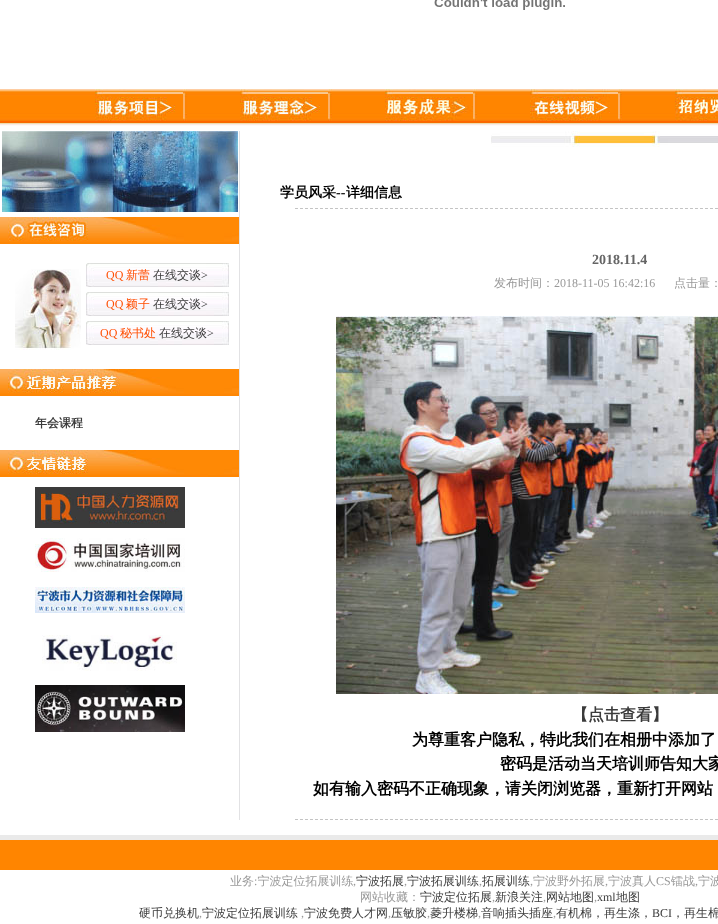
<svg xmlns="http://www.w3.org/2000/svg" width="718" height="924">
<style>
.a{font:12px Liberation Serif;fill:#ff4e00}
.b{font:500 12px WenQuanYi Zen Hei;fill:#ff4e00}
.c{font:500 12px WenQuanYi Zen Hei;fill:#3b3b3b}
.d{font:12px Liberation Serif;fill:#3b3b3b}
.e{font:bold 12px WenQuanYi Zen Hei;fill:#3b3b3b}
.f{font:bold 14px WenQuanYi Zen Hei;fill:#000}
.g{font:bold 14px Liberation Serif;fill:#000}
.h{font:bold 14px Liberation Serif;fill:#656565}
.i{font:500 12px WenQuanYi Zen Hei;fill:#999}
.j{font:12px Liberation Serif;fill:#999}
.k{font:bold 16px WenQuanYi Zen Hei;fill:#3b3b3b}
.l{font:bold 16px WenQuanYi Zen Hei;fill:#000}
</style>
<rect width="100%" height="100%" fill="#fff"/>
<image href="1.png" x="434" y="0" width="131" height="10"/>
<image href="2.png" x="0" y="89" width="718" height="37"/>
<image href="3.png" x="95" y="89" width="92" height="32"/>
<image href="4.png" x="240" y="89" width="92" height="32"/>
<image href="5.png" x="385" y="89" width="92" height="32"/>
<image href="6.png" x="530" y="89" width="92" height="32"/>
<image href="7.png" x="675" y="89" width="43" height="32"/>
<image href="8.png" x="2" y="131" width="236" height="81"/>
<image href="9.png" x="0" y="217" width="239" height="27"/>
<image href="10.png" x="15" y="269" width="66" height="81"/>
<image href="11.png" x="86" y="263" width="143" height="24"/>
<image href="11.png" x="86" y="292" width="143" height="24"/>
<image href="11.png" x="86" y="321" width="143" height="24"/>
<image href="12.png" x="0" y="369" width="239" height="27"/>
<image href="13.png" x="0" y="450" width="239" height="27"/>
<image href="14.png" x="35" y="487" width="150" height="41"/>
<image href="15.png" x="35" y="538" width="150" height="34"/>
<image href="16.png" x="35" y="587" width="150" height="26"/>
<image href="17.png" x="42" y="635" width="135" height="36"/>
<image href="18.png" x="35" y="685" width="150" height="47"/>
<path fill="#e2e2e4" d="M239 131h1v689H239z"/>
<image href="19.png" x="491" y="131" width="227" height="16"/>
<image href="20.png" x="295" y="208" width="423" height="1"/>
<image href="21.png" x="336" y="316" width="382" height="378"/>
<image href="20.png" x="295" y="819" width="423" height="1"/>
<path fill="#eaeaea" d="M0 835h718v5H0z"/>
<path fill="#ff8500" d="M0 840h718v30H0z"/>
<text class="a" x="106" y="279">QQ</text>
<text class="b" x="126" y="279">新蕾</text>
<text class="c" x="153" y="279">在线交谈</text>
<text class="d" x="201" y="279">&gt;</text>
<text class="a" x="106" y="308">QQ</text>
<text class="b" x="126" y="308">颖子</text>
<text class="c" x="153" y="308">在线交谈</text>
<text class="d" x="201" y="308">&gt;</text>
<text class="a" x="100" y="337">QQ</text>
<text class="b" x="120" y="337">秘书处</text>
<text class="c" x="159" y="337">在线交谈</text>
<text class="d" x="207" y="337">&gt;</text>
<text class="e" x="35" y="427">年会课程</text>
<text class="f" x="280" y="197">学员风采</text>
<text class="g" x="336" y="197">--</text>
<text class="f" x="346" y="197">详细信息</text>
<text class="h" x="592" y="264">2018.11.4</text>
<text class="i" x="494" y="287">发布时间：</text>
<text class="j" x="554" y="287">2018-11-05 16:42:16</text>
<text class="i" x="674" y="287">点击量：</text>
<text class="k" x="572" y="720">【点击查看】</text>
<text class="l" x="412" y="745">为尊重客户隐私，特此我们在相册中添加了</text>
<text class="l" x="500" y="769">密码是活动当天培训师告知大家</text>
<text class="l" x="313" y="794">如有输入密码不正确现象，请关闭浏览器，重新打开网站</text>
<text class="i" x="230" y="885">业务 宁波定位拓展训练</text>
<text class="c" x="356" y="885">宁波拓展</text>
<text class="c" x="407" y="885">宁波拓展训练</text>
<text class="c" x="482" y="885">拓展训练</text>
<text class="i" x="533" y="885">宁波野外拓展</text>
<text class="i" x="608" y="885">宁波真人</text>
<text class="j" x="656" y="885">CS</text>
<text class="i" x="671" y="885">镭战</text>
<text class="i" x="698" y="885">宁波</text>
<text class="j" x="254" y="885">:</text>
<text class="j" x="353" y="885">,</text>
<text class="j" x="404" y="885">,</text>
<text class="j" x="479" y="885">,</text>
<text class="j" x="530" y="885">,</text>
<text class="j" x="605" y="885">,</text>
<text class="j" x="695" y="885">,</text>
<text class="i" x="360" y="901">网站收藏：</text>
<text class="c" x="420" y="901">宁波定位拓展</text>
<text class="j" x="492" y="901">,</text>
<text class="c" x="495" y="901">新浪关注</text>
<text class="j" x="543" y="901">,</text>
<text class="c" x="546" y="901">网站地图</text>
<text class="j" x="594" y="901">,</text>
<text class="d" x="597" y="901">xml</text>
<text class="c" x="616" y="901">地图</text>
<text class="c" x="139" y="917">硬币兑换机</text>
<text class="j" x="199" y="917">,</text>
<text class="c" x="202" y="917">宁波定位拓展训练</text>
<text class="j" x="301" y="917">,</text>
<text class="c" x="304" y="917">宁波免费人才网</text>
<text class="j" x="388" y="917">,</text>
<text class="c" x="391" y="917">压敏胶</text>
<text class="j" x="427" y="917">,</text>
<text class="c" x="430" y="917">菱升楼梯</text>
<text class="j" x="478" y="917">,</text>
<text class="c" x="481" y="917">音响插头插座</text>
<text class="j" x="553" y="917">,</text>
<text class="c" x="556" y="917">有机棉，再生涤，</text>
<text class="d" x="652" y="917">BCI</text>
<text class="c" x="672" y="917">，再生棉</text>
</svg>
